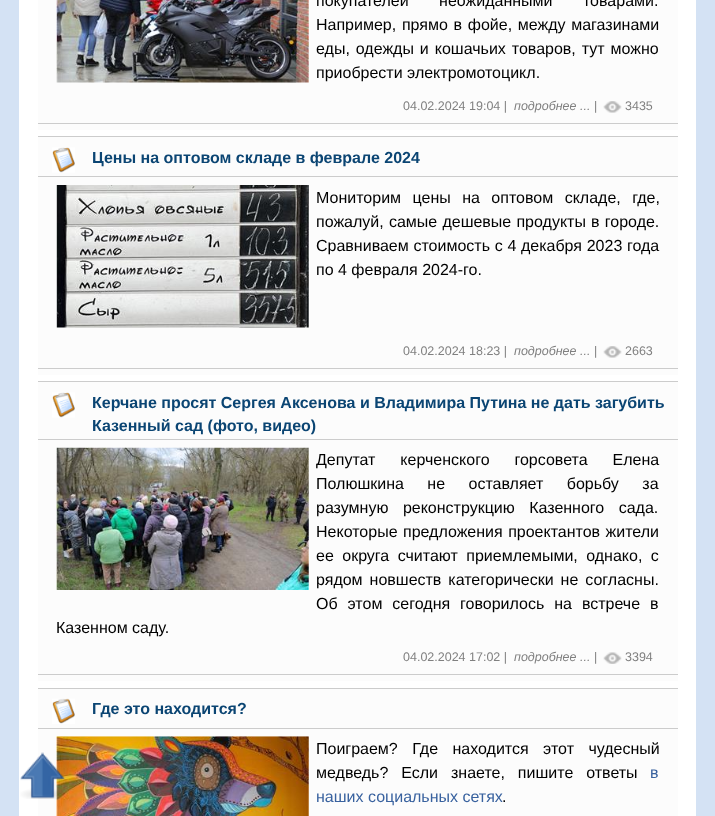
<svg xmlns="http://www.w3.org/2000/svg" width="715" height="816">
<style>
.a{font:16px Liberation Sans;fill:#000}
.b{font:12.5px Liberation Sans;fill:#808080}
.c{font:italic 12.5px Liberation Sans;fill:#808080}
.d{font:bold 16px Liberation Sans;fill:#0b4573}
.e{font:16px Liberation Sans;fill:#39629f}
</style>
<rect width="100%" height="100%" fill="#d4e2f4"/>
<path fill="#fff" d="M19 0h677v816H19z"/>
<path fill="#fcfcfc" d="M38 689h640v127H38z"/>
<image href="9.png" x="56" y="736" width="253" height="80"/>
<image href="1.png" x="20" y="752" width="45" height="47"/>
<path fill="#fcfcfc" d="M38 0h640v130H38z"/>
<image href="2.png" x="56" y="0" width="253" height="83"/>
<path fill="#ccc" d="M38 123h640v1H38z"/>
<image href="3.png" x="603" y="101" width="19" height="12"/>
<path fill="#fcfcfc" d="M38 137h640v238H38z"/>
<path fill="#ccc" d="M38 136h640v1H38z"/>
<image href="4.png" x="52" y="147" width="23" height="26"/>
<path fill="#ccc" d="M38 176h640v1H38z"/>
<image href="5.png" x="56" y="185" width="253" height="143"/>
<path fill="#ccc" d="M38 368h640v1H38z"/>
<image href="3.png" x="603" y="346" width="19" height="12"/>
<path fill="#fcfcfc" d="M38 382h640v299H38z"/>
<path fill="#ccc" d="M38 381h640v1H38z"/>
<image href="4.png" x="52" y="392" width="23" height="26"/>
<path fill="#ccc" d="M38 439h640v1H38z"/>
<image href="6.png" x="56" y="447" width="253" height="143"/>
<path fill="#ccc" d="M38 674h640v1H38z"/>
<image href="7.png" x="603" y="652" width="19" height="12"/>
<path fill="#ccc" d="M38 688h640v1H38z"/>
<image href="8.png" x="52" y="698" width="23" height="26"/>
<path fill="#ccc" d="M38 728h640v1H38z"/>
<text class="a" x="316" y="6" word-spacing="26">покупателей неожиданными товарами.</text>
<text class="a" x="316" y="30" word-spacing="1.25">Например, прямо в фойе, между магазинами</text>
<text class="a" x="316" y="54" word-spacing="1.5">еды, одежды и кошачьих товаров, тут можно</text>
<text class="a" x="316" y="78">приобрести электромотоцикл.</text>
<text class="b" x="403" y="110">04.02.2024 19:04 |</text>
<text class="c" x="514" y="110">подробнее ...</text>
<text class="b" x="594" y="110">|</text>
<text class="b" x="625" y="110">3435</text>
<text class="d" x="92" y="163">Цены на оптовом складе в феврале 2024</text>
<text class="a" x="316" y="203" word-spacing="7">Мониторим цены на оптовом складе, где,</text>
<text class="a" x="316" y="227" word-spacing="0.75">пожалуй, самые дешевые продукты в городе.</text>
<text class="a" x="316" y="251" word-spacing="0.25">Сравниваем стоимость с 4 декабря 2023 года</text>
<text class="a" x="316" y="275">по 4 февраля 2024-го.</text>
<text class="b" x="403" y="355">04.02.2024 18:23 |</text>
<text class="c" x="514" y="355">подробнее ...</text>
<text class="b" x="594" y="355">|</text>
<text class="b" x="625" y="355">2663</text>
<text class="d" x="92" y="408">Керчане просят Сергея Аксенова и Владимира Путина не дать загубить</text>
<text class="d" x="92" y="431">Казенный сад (фото, видео)</text>
<text class="a" x="316" y="465" word-spacing="20.5">Депутат керченского горсовета Елена</text>
<text class="a" x="316" y="489" word-spacing="19">Полюшкина не оставляет борьбу за</text>
<text class="a" x="316" y="513" word-spacing="10">разумную реконструкцию Казенного сада.</text>
<text class="a" x="316" y="537" word-spacing="1">Некоторые предложения проектантов жители</text>
<text class="a" x="316" y="561" word-spacing="4">ее округа считают приемлемыми, однако, с</text>
<text class="a" x="316" y="585" word-spacing="2.5">рядом новшеств категорически не согласны.</text>
<text class="a" x="316" y="609" word-spacing="5.5">Об этом сегодня говорилось на встрече в</text>
<text class="a" x="56" y="633">Казенном саду.</text>
<text class="b" x="403" y="661">04.02.2024 17:02 |</text>
<text class="c" x="514" y="661">подробнее ...</text>
<text class="b" x="594" y="661">|</text>
<text class="b" x="625" y="661">3394</text>
<text class="d" x="92" y="714">Где это находится?</text>
<text class="a" x="316" y="754" word-spacing="10">Поиграем? Где находится этот чудесный</text>
<text class="a" x="316" y="778" word-spacing="8.5">медведь? Если знаете, пишите ответы</text>
<text class="e" x="650" y="778">в</text>
<text class="e" x="316" y="802">наших социальных сетях</text>
<text class="a" x="502" y="802">.</text>
</svg>
